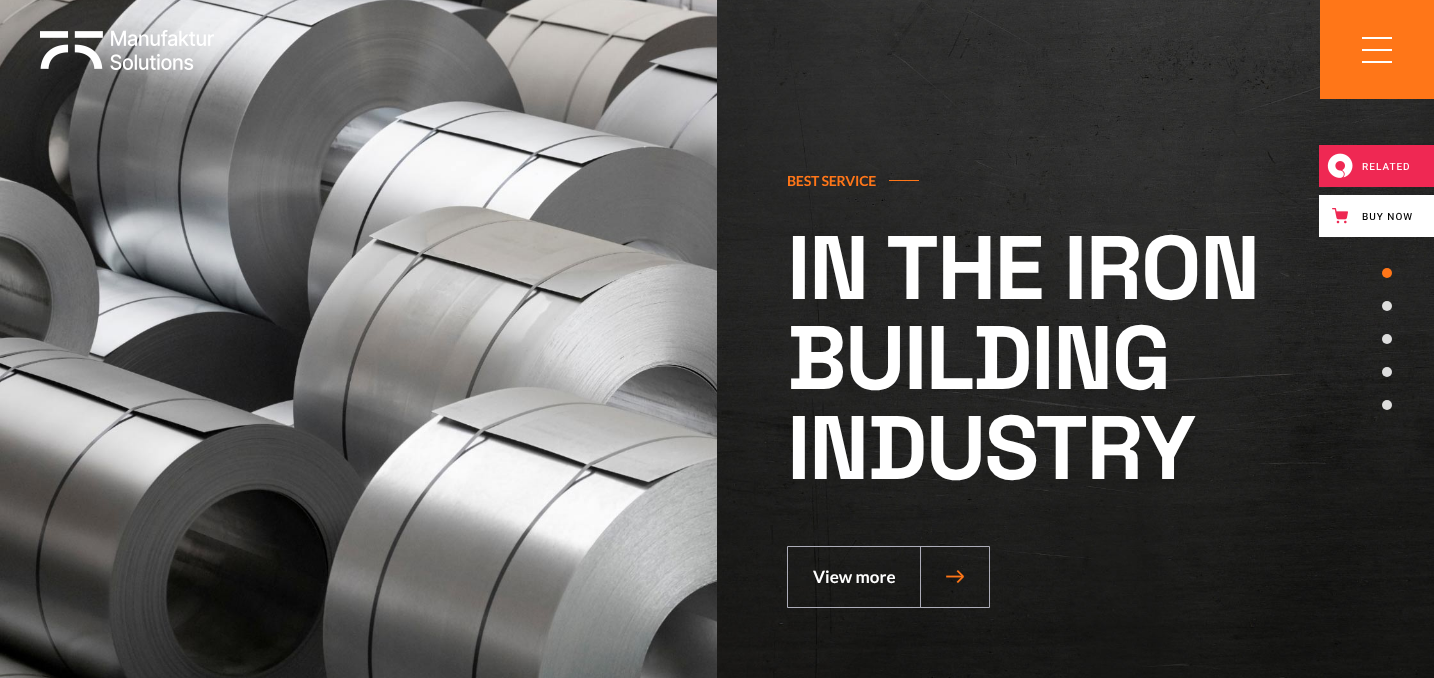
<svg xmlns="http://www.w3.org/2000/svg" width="1434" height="678">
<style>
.a{font:bold 14px Lato;letter-spacing:-0.25px;fill:#ff7618}
.b{font:bold 90px Space Grotesk;letter-spacing:-1.75px;fill:#fff}
.c{font:bold 17px Lato;fill:#fff}
.d{font:500 10px Heebo;letter-spacing:1px;fill:#fff}
.e{font:500 10px Heebo;letter-spacing:1px;fill:#000}
</style>
<rect width="100%" height="100%" fill="#fff"/>
<image href="2.png" x="0" y="0" width="717" height="678"/>
<image href="1.png" x="40" y="30" width="174" height="40"/>
<image href="3.png" x="717" y="0" width="717" height="678"/>
<path fill="#ff7618" d="M1320 0h114v99H1320z"/>
<path fill="#fff" d="M1362 37h30v2H1362z"/>
<path fill="#fff" d="M1362 49h30v2H1362z"/>
<path fill="#fff" d="M1362 61h30v2H1362z"/>
<path fill="#ff7618" d="M889 180h30v1H889z"/>
<path fill="none" stroke="#adadb9" d="M787.5 546.5h202v61H787.5z"/>
<path fill="#adadb9" d="M920 547h1v60H920z"/>
<image href="4.png" x="946" y="570" width="18" height="13"/>
<path fill="#ef2853" d="M1319 145h115v42H1319z"/>
<image href="5.png" x="1327" y="153" width="26" height="25"/>
<path fill="#fff" d="M1319 195h115v42H1319z"/>
<image href="6.png" x="1332" y="208" width="16" height="16"/>
<circle fill="#ff7618" cx="1387" cy="273" r="5"/>
<circle fill="#ddd" cx="1387" cy="306" r="5"/>
<circle fill="#ddd" cx="1387" cy="339" r="5"/>
<circle fill="#ddd" cx="1387" cy="372" r="5"/>
<circle fill="#ddd" cx="1387" cy="405" r="5"/>
<text class="a" x="787" y="186">BEST SERVICE</text>
<text class="b" x="787" y="299">IN THE IRON</text>
<text class="b" x="787" y="389">BUILDING</text>
<text class="b" x="787" y="479">INDUSTRY</text>
<text class="c" x="813" y="583">View more</text>
<text class="d" x="1362" y="170">RELATED</text>
<text class="e" x="1362" y="220">BUY NOW</text>
</svg>
